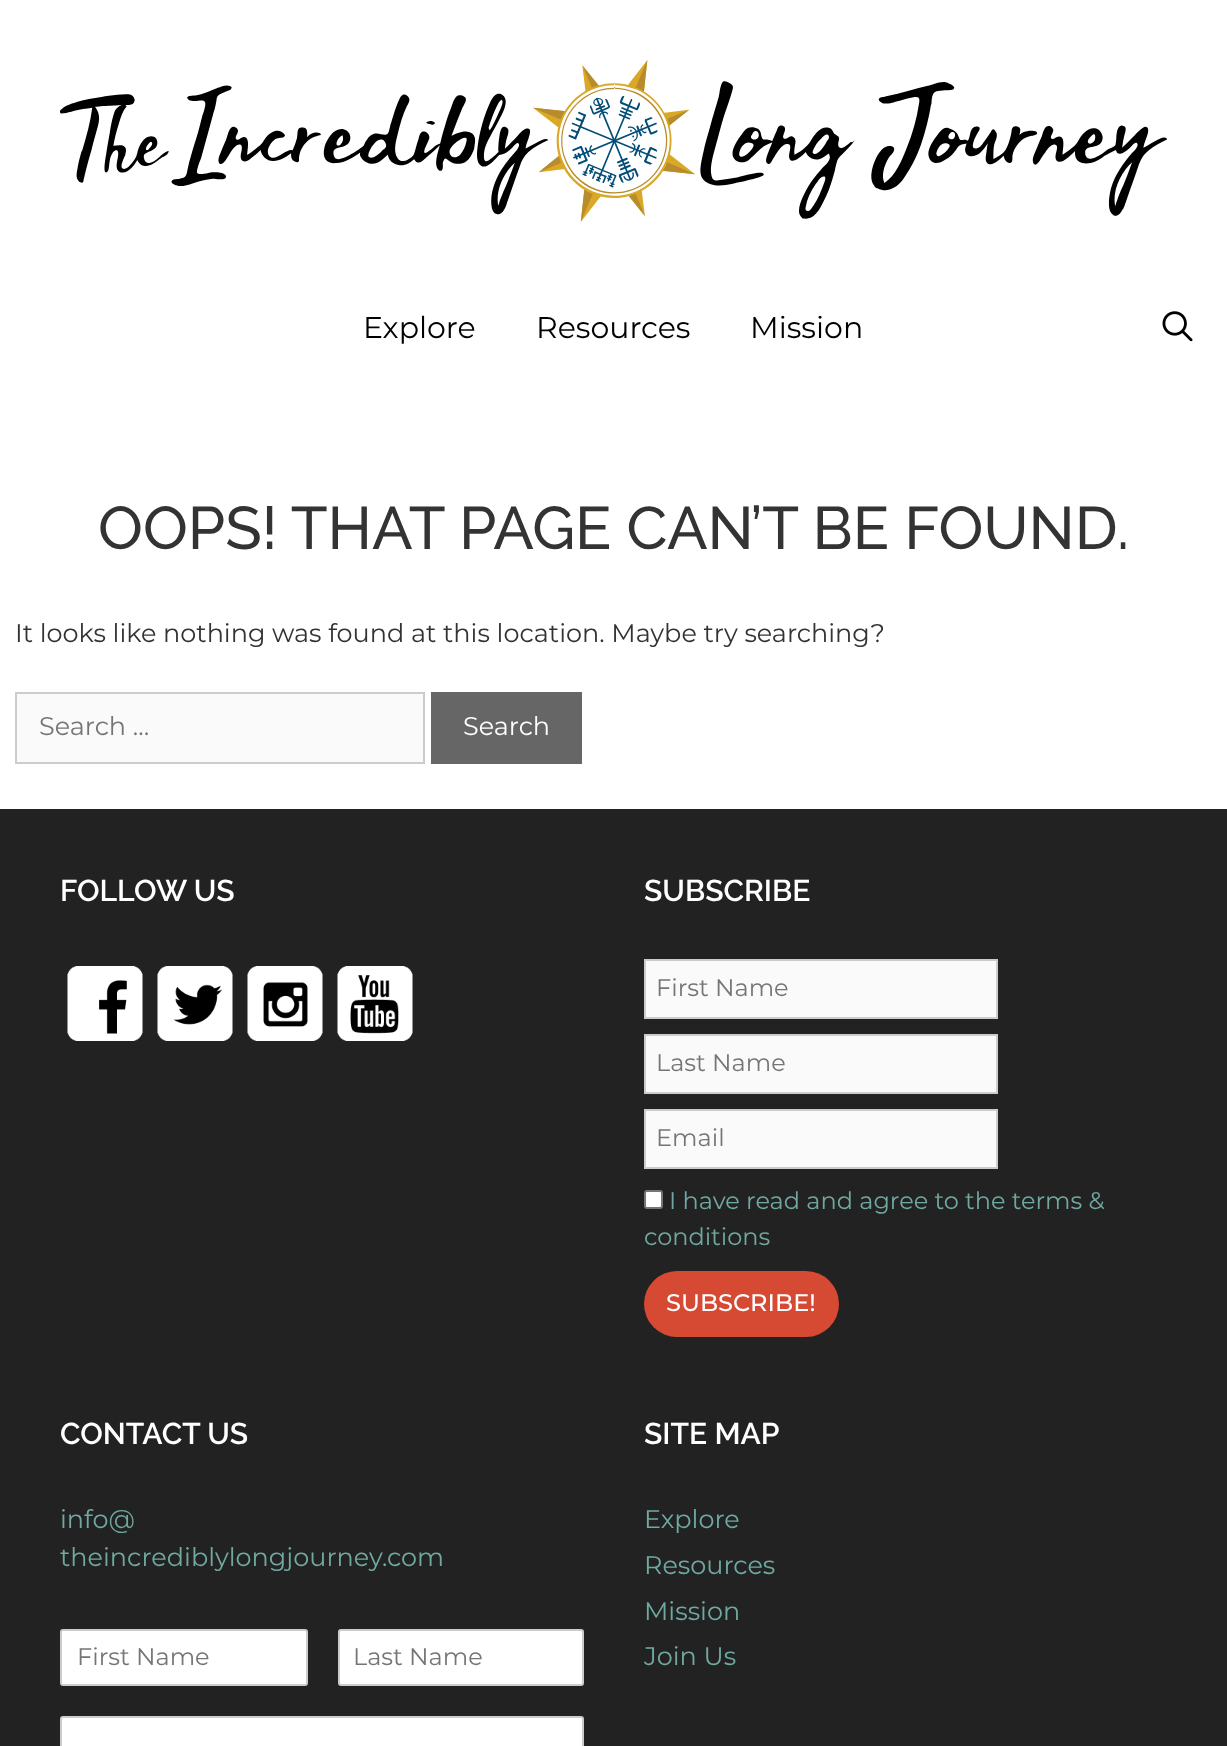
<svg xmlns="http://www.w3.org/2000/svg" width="1227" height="1746">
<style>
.a{font:30px Montserrat;fill:#000}
.b{font:500 60px Raleway;fill:#333}
.c{font:25.5px Montserrat;fill:#333}
.d{font:25.5px Montserrat;fill:#757575}
.e{font:25.5px Montserrat;fill:#fff}
.f{font:600 30px Raleway;fill:#fff}
.g{font:24px Montserrat;fill:#757575}
.h{font:24px Montserrat;fill:#70a9a1}
.i{font:500 24px Montserrat;fill:#fff}
.j{font:25.5px Montserrat;fill:#70a9a1}
</style>
<rect width="100%" height="100%" fill="#fff"/>
<image href="1.png" x="60" y="60" width="1107" height="162"/>
<image href="2.png" x="1162" y="311" width="31" height="31"/>
<path fill="#fafafa" stroke="#ccc" stroke-width="2" d="M16 693h408v70H16z"/>
<path fill="#666" d="M431 692h151v72H431z"/>
<path fill="#222" d="M0 809h1227v937H0z"/>
<image href="3.png" x="67" y="966" width="76" height="75"/>
<image href="4.png" x="157" y="966" width="76" height="75"/>
<image href="5.png" x="247" y="966" width="76" height="75"/>
<image href="6.png" x="337" y="966" width="76" height="75"/>
<path fill="#fafafa" stroke="#ccc" stroke-width="2" d="M645 960h352v58H645z"/>
<path fill="#fafafa" stroke="#ccc" stroke-width="2" d="M645 1035h352v58H645z"/>
<path fill="#fafafa" stroke="#ccc" stroke-width="2" d="M645 1110h352v58H645z"/>
<rect fill="#fff" stroke="#767676" stroke-width="2" x="645" y="1191" width="17" height="17" rx="2"/>
<rect fill="#d64933" x="644" y="1271" width="195" height="66" rx="33"/>
<rect fill="#fff" stroke="#ccc" stroke-width="2" x="61" y="1630" width="246" height="55" rx="2"/>
<rect fill="#fff" stroke="#ccc" stroke-width="2" x="339" y="1630" width="244" height="55" rx="2"/>
<rect fill="#fff" stroke="#ccc" stroke-width="2" x="61" y="1717" width="522" height="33" rx="2"/>
<text class="a" x="363" y="338">Explore</text>
<text class="a" x="536" y="338">Resources</text>
<text class="a" x="750" y="338">Mission</text>
<text class="b" x="98" y="549">OOPS! THAT PAGE CAN’T BE FOUND.</text>
<text class="c" x="15" y="642">It looks like nothing was found at this location. Maybe try searching?</text>
<text class="d" x="39" y="735">Search …</text>
<text class="e" x="463" y="735">Search</text>
<text class="f" x="60" y="901">FOLLOW US</text>
<text class="f" x="644" y="901">SUBSCRIBE</text>
<text class="g" x="656" y="996">First Name</text>
<text class="g" x="656" y="1071">Last Name</text>
<text class="g" x="656" y="1146">Email</text>
<text class="h" x="669" y="1209">I have read and agree to the terms &amp;</text>
<text class="h" x="644" y="1245">conditions</text>
<text class="i" x="666" y="1311">SUBSCRIBE!</text>
<text class="f" x="60" y="1444">CONTACT US</text>
<text class="j" x="60" y="1528">info@</text>
<text class="j" x="60" y="1566">theincrediblylongjourney.com</text>
<text class="g" x="77" y="1665">First Name</text>
<text class="g" x="353" y="1665">Last Name</text>
<text class="f" x="644" y="1444">SITE MAP</text>
<text class="j" x="644" y="1528">Explore</text>
<text class="j" x="644" y="1574">Resources</text>
<text class="j" x="644" y="1620">Mission</text>
<text class="j" x="644" y="1665">Join Us</text>
</svg>
